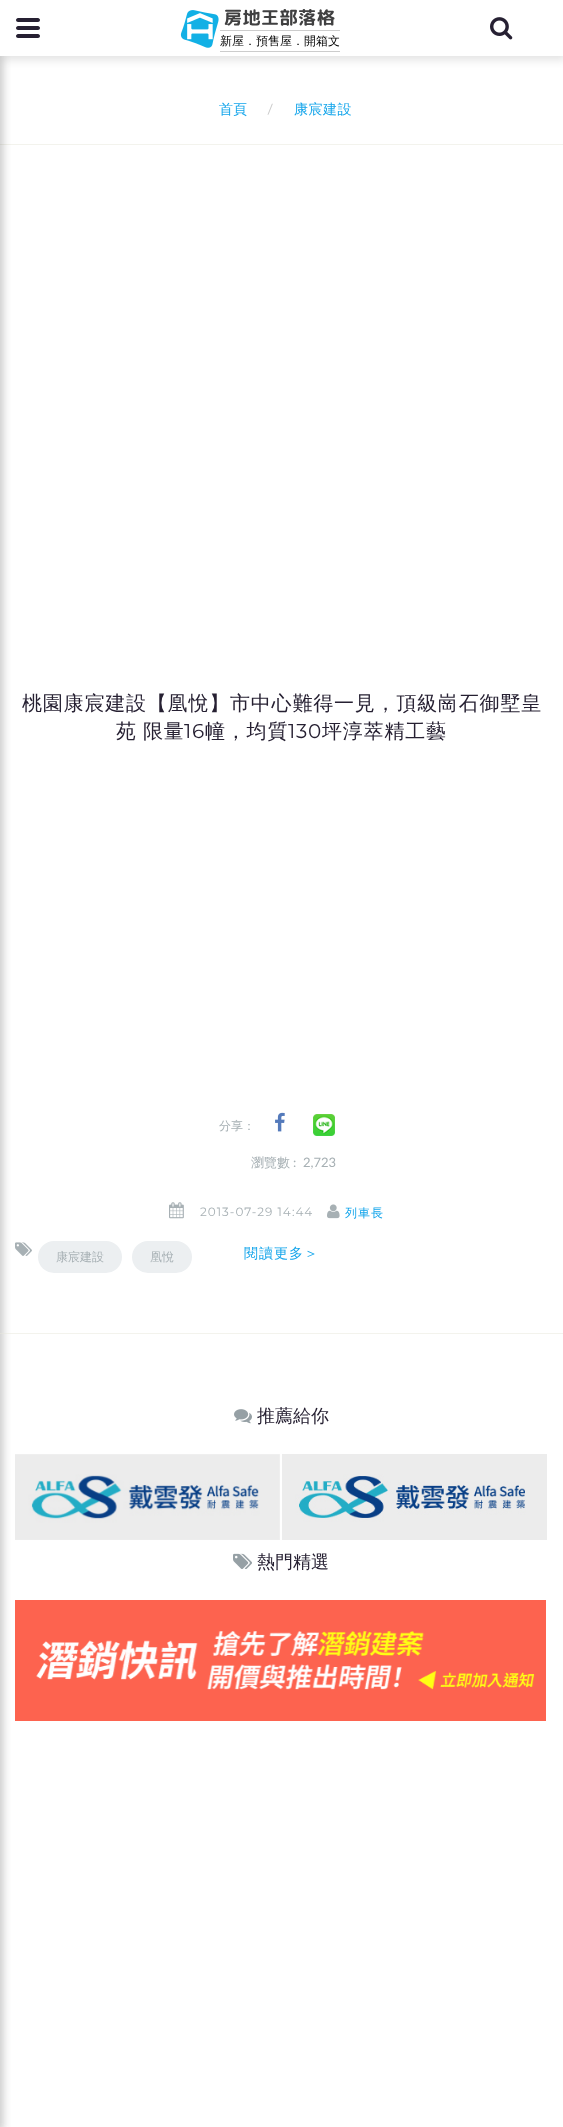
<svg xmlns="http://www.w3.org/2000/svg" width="563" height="2127">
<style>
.a{font:bold 18px 'Rounded Mplus 1c Bold';letter-spacing:0.5px;fill:#404041}
.b{font:500 12px WenQuanYi Zen Hei;fill:#000}
.c{font:500 14px WenQuanYi Zen Hei;fill:#14a5eb}
.d{font:14px Lato;fill:#ccc}
.e{font:500 14px WenQuanYi Zen Hei;letter-spacing:0.5px;fill:#14a5eb}
.f{font:500 20px WenQuanYi Zen Hei;letter-spacing:0.8px;fill:#262032}
.g{font:20px Montserrat;letter-spacing:0.8px;fill:#262032}
.h{font:500 12px WenQuanYi Zen Hei;fill:#a7b0b4}
.i{font:500 13px WenQuanYi Zen Hei;fill:#a7b0b4}
.j{font:13px Lato;fill:#a7b0b4}
.k{font:12px Montserrat;letter-spacing:1px;fill:#a7b0b4}
.l{font:500 12px WenQuanYi Zen Hei;letter-spacing:1px;fill:#14a5eb}
.m{font:500 14px WenQuanYi Zen Hei;letter-spacing:1px;fill:#14a5eb}
.n{font:500 18px WenQuanYi Zen Hei;fill:#262032}
</style>
<rect width="100%" height="100%" fill="#fff"/>
<path fill="#f3f3ed" d="M0 144h563v1H0z"/>
<path fill="#0000001c" filter="blur(4px)" d="M-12 4h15v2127H-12z"/>
<path fill="#f3f3ed" d="M0 1333h563v1H0z"/>
<image href="7.png" x="15" y="1242" width="17" height="14"/>
<image href="9.png" x="15" y="1454" width="265" height="86"/>
<image href="12.png" x="15" y="1600" width="531" height="121"/>
<path fill="#0000001c" filter="blur(4px)" d="M-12 4h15v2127H-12z"/>
<path fill="#0000001c" filter="blur(4px)" d="M3 4h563v56H3z"/>
<path fill="#fff" d="M0 0h563v56H0z"/>
<image href="1.png" x="490" y="17" width="23" height="23"/>
<path fill="#262032" d="M38 30h-20c-1 0-2-1-2-2c0-1 1-2 2-2h20c1 0 2 1 2 2c0 1-1 2-2 2zm0 8h-20c-1 0-2-1-2-2c0-1 1-2 2-2h20c1 0 2 1 2 2c0 1-1 2-2 2zm0-16h-20c-1 0-2-1-2-2c0-1 1-2 2-2h20c1 0 2 1 2 2c0 1-1 2-2 2z"/>
<image href="2.png" x="180" y="10" width="39" height="38"/>
<path fill="#ccc" d="M220 30h120v1H220z"/>
<path fill="#ccc" d="M220 51h120v1H220z"/>
<image href="3.png" x="275" y="1112" width="10" height="20"/>
<image href="4.png" x="313" y="1114" width="22" height="22"/>
<image href="5.png" x="169" y="1202" width="15" height="17"/>
<image href="6.png" x="327" y="1204" width="13" height="15"/>
<rect fill="#eceff1" x="38" y="1241" width="84" height="32" rx="16"/>
<rect fill="#eceff1" x="132" y="1241" width="60" height="32" rx="16"/>
<image href="8.png" x="234" y="1409" width="18" height="15"/>
<image href="10.png" x="282" y="1454" width="265" height="86"/>
<image href="11.png" x="233" y="1553" width="19" height="16"/>
<text class="a" x="224" y="24">房地王部落格</text>
<text class="b" x="220" y="45">新屋．預售屋．開箱文</text>
<text class="c" x="219" y="114">首頁</text>
<text class="d" x="267" y="114">/</text>
<text class="e" x="294" y="114">康宸建設</text>
<text class="f" x="22" y="710">桃園康宸建設【凰悅】市中心難得一見，頂級崗石御墅皇</text>
<text class="f" x="116" y="738">苑</text>
<text class="f" x="143" y="738">限量</text>
<text class="g" x="184" y="738">16</text>
<text class="f" x="205" y="738">幢，均質</text>
<text class="g" x="288" y="738">130</text>
<text class="f" x="322" y="738">坪淳萃精工藝</text>
<text class="h" x="219" y="1130">分享：</text>
<text class="i" x="251" y="1167">瀏覽數</text>
<text class="j" xml:space="preserve" x="293" y="1167">:  2,723</text>
<text class="k" x="200" y="1216">2013-07-29 14:44</text>
<text class="l" x="345" y="1217">列車長</text>
<text class="h" x="56" y="1261">康宸建設</text>
<text class="h" x="150" y="1261">凰悅</text>
<text class="m" x="244" y="1258">閱讀更多＞</text>
<text class="n" x="257" y="1422">推薦給你</text>
<text class="n" x="257" y="1568">熱門精選</text>
</svg>
